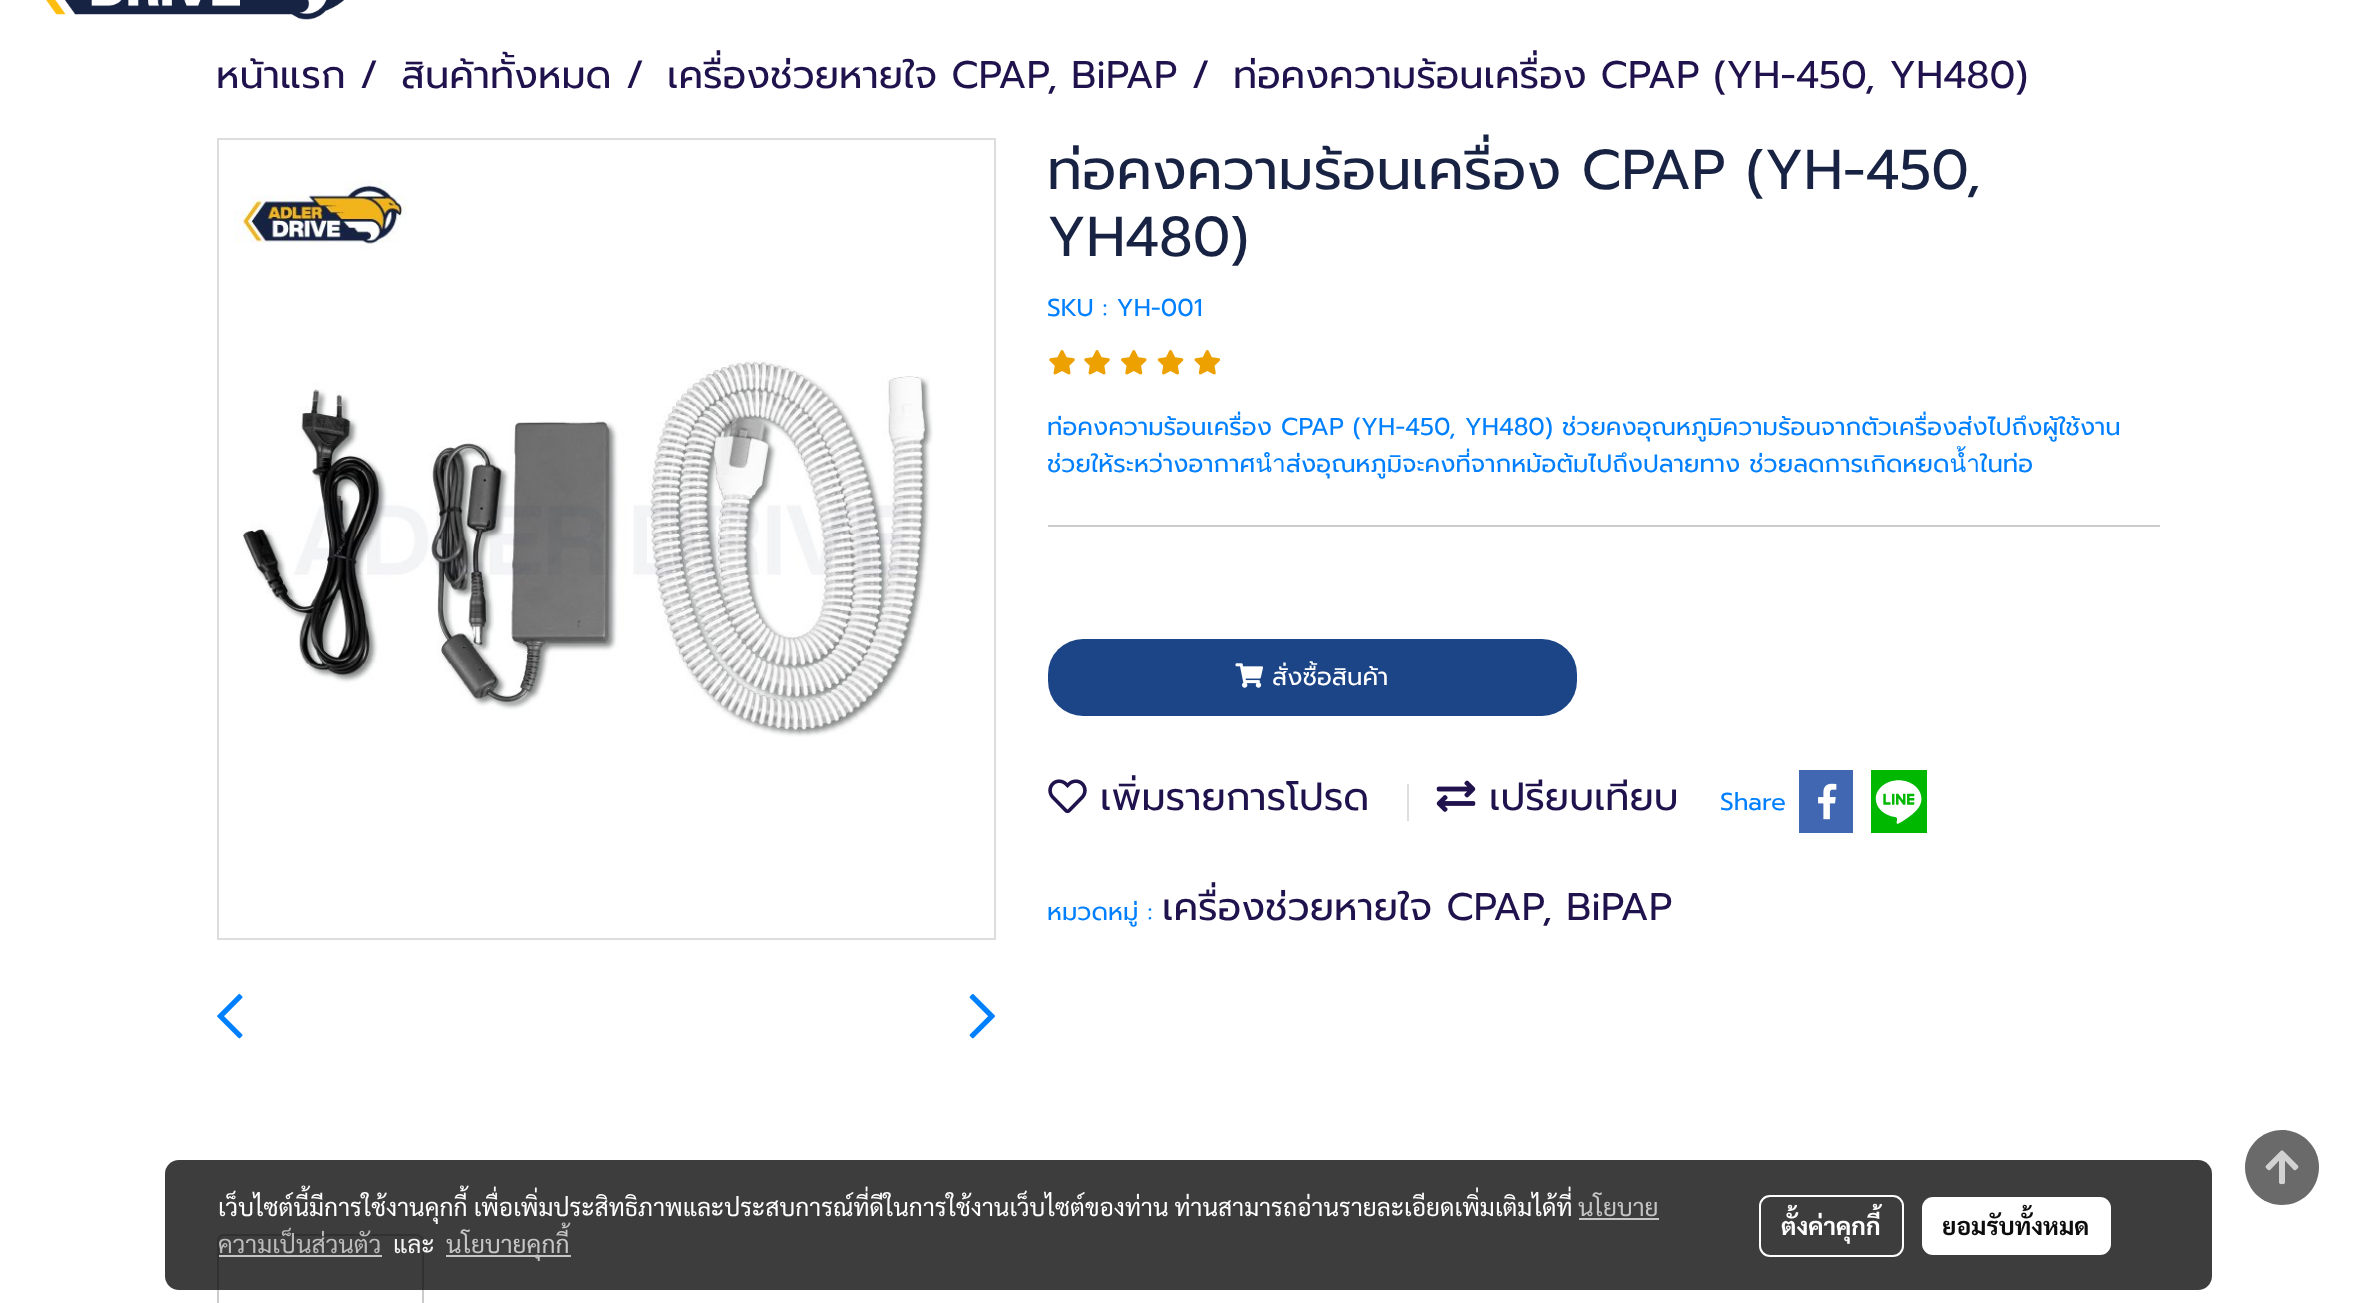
<svg xmlns="http://www.w3.org/2000/svg" width="2374" height="1303">
<style>
.a{font:38.5px Prompt;fill:#20124d}
.b{font:56px Prompt;fill:#182343}
.c{font:24.5px Prompt;fill:#0080ff}
.d{font:24.5px Prompt;fill:#fff}
.e{font:24.5px Sarabun;fill:#fff}
.f{font:24.5px Sarabun;fill:#c5c5c5}
.g{font:24.5px Sarabun;fill:#bbb}
.h{font:24.5px Sarabun;fill:#f5f5f5}
.i{font:bold 24.5px Sarabun;fill:#fff}
.j{font:bold 24.5px Sarabun;fill:#0d0d0d}
</style>
<rect width="100%" height="100%" fill="#fff"/>
<image href="1.png" x="46" y="0" width="299" height="20"/>
<path fill="none" stroke="#ddd" stroke-width="2" d="M218 139h777v800H218z"/>
<image href="2.png" x="234" y="180" width="699" height="557"/>
<image href="3.png" x="217" y="994" width="26" height="45"/>
<image href="4.png" x="969" y="994" width="26" height="45"/>
<image href="5.png" x="1049" y="350" width="26" height="25"/>
<image href="5.png" x="1084" y="350" width="26" height="25"/>
<image href="6.png" x="1121" y="350" width="26" height="25"/>
<image href="7.png" x="1157" y="350" width="27" height="25"/>
<image href="8.png" x="1194" y="350" width="26" height="25"/>
<path fill="#ccc" d="M1048 525h1112v2H1048z"/>
<rect fill="#1c4587" x="1048" y="639" width="529" height="77" rx="35"/>
<image href="9.png" x="1235" y="663" width="28" height="25"/>
<image href="10.png" x="1048" y="779" width="39" height="35"/>
<path fill="#dedede" d="M1407 784h2v37H1407z"/>
<image href="11.png" x="1436" y="780" width="40" height="32"/>
<path fill="#4267b2" d="M1799 770h54v63H1799z"/>
<image href="12.png" x="1818" y="783" width="19" height="37"/>
<path fill="#00b800" d="M1871 770h56v63H1871z"/>
<image href="13.png" x="1875" y="780" width="47" height="44"/>
<path fill="#ccc" fill-rule="evenodd" d="M224 1234h192c4 0 8 3 8 7v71h-207v-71c0-4 3-7 7-7zm0 2h192c3 0 6 2 6 5v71h-203v-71c0-3 2-5 5-5z"/>
<path fill="#6b6a6a" d="M2282 1130c-21 0-37 17-37 37c0 21 16 38 37 38c21 0 37-17 37-38c0-20-16-37-37-37z"/>
<image href="14.png" x="2265" y="1150" width="34" height="35"/>
<rect fill="#000000c2" x="165" y="1160" width="2047" height="130" rx="14"/>
<path fill="#c5c5c5" d="M1579 1218h80v2H1579z"/>
<path fill="#c5c5c5" d="M219 1255h163v2H219z"/>
<path fill="#c5c5c5" d="M446 1255h125v2H446z"/>
<rect fill="none" stroke="#fff" stroke-width="2" x="1760" y="1196" width="143" height="60" rx="10"/>
<rect fill="#fff" x="1922" y="1197" width="189" height="58" rx="11"/>
<text class="a" x="216" y="88">หน้าแรก /</text>
<text class="a" x="401" y="88">สินค้าทั้งหมด /</text>
<text class="a" x="667" y="88">เครื่องช่วยหายใจ CPAP, BiPAP /</text>
<text class="a" x="1233" y="88">ท่อคงความร้อนเครื่อง CPAP (YH-450, YH480)</text>
<text class="b" x="1047" y="189">ท่อคงความร้อนเครื่อง CPAP (YH-450,</text>
<text class="b" x="1047" y="256">YH480)</text>
<text class="c" x="1047" y="316">SKU : YH-001</text>
<text class="c" x="1047" y="435">ท่อคงความร้อนเครื่อง CPAP (YH-450, YH480) ช่วยคงอุณหภูมิความร้อนจากตัวเครื่องส่งไปถึงผู้ใช้งาน</text>
<text class="c" x="1047" y="472">ช่วยให้ระหว่างอากาศนำส่งอุณหภูมิจะคงที่จากหม้อต้มไปถึงปลายทาง ช่วยลดการเกิดหยดน้ำในท่อ</text>
<text class="d" x="1272" y="685">สั่งซื้อสินค้า</text>
<text class="a" x="1100" y="810">เพิ่มรายการโปรด</text>
<text class="a" x="1489" y="810">เปรียบเทียบ</text>
<text class="c" x="1720" y="810">Share</text>
<text class="c" x="1047" y="920">หมวดหมู่ :</text>
<text class="a" x="1162" y="920">เครื่องช่วยหายใจ CPAP, BiPAP</text>
<text class="e" x="218" y="1216">เว็บไซต์นี้มีการใช้งานคุกกี้ เพื่อเพิ่มประสิทธิภาพและประสบการณ์ที่ดีในการใช้งานเว็บไซต์ของท่าน ท่านสามารถอ่านรายละเอียดเพิ่มเติมได้ที่</text>
<text class="f" x="1578" y="1216">นโยบาย</text>
<text class="g" x="218" y="1253">ความเป็นส่วนตัว</text>
<text class="h" x="393" y="1253">และ</text>
<text class="f" x="446" y="1253">นโยบายคุกกี้</text>
<text class="i" x="1781" y="1235">ตั้งค่าคุกกี้</text>
<text class="j" x="1942" y="1235">ยอมรับทั้งหมด</text>
</svg>
